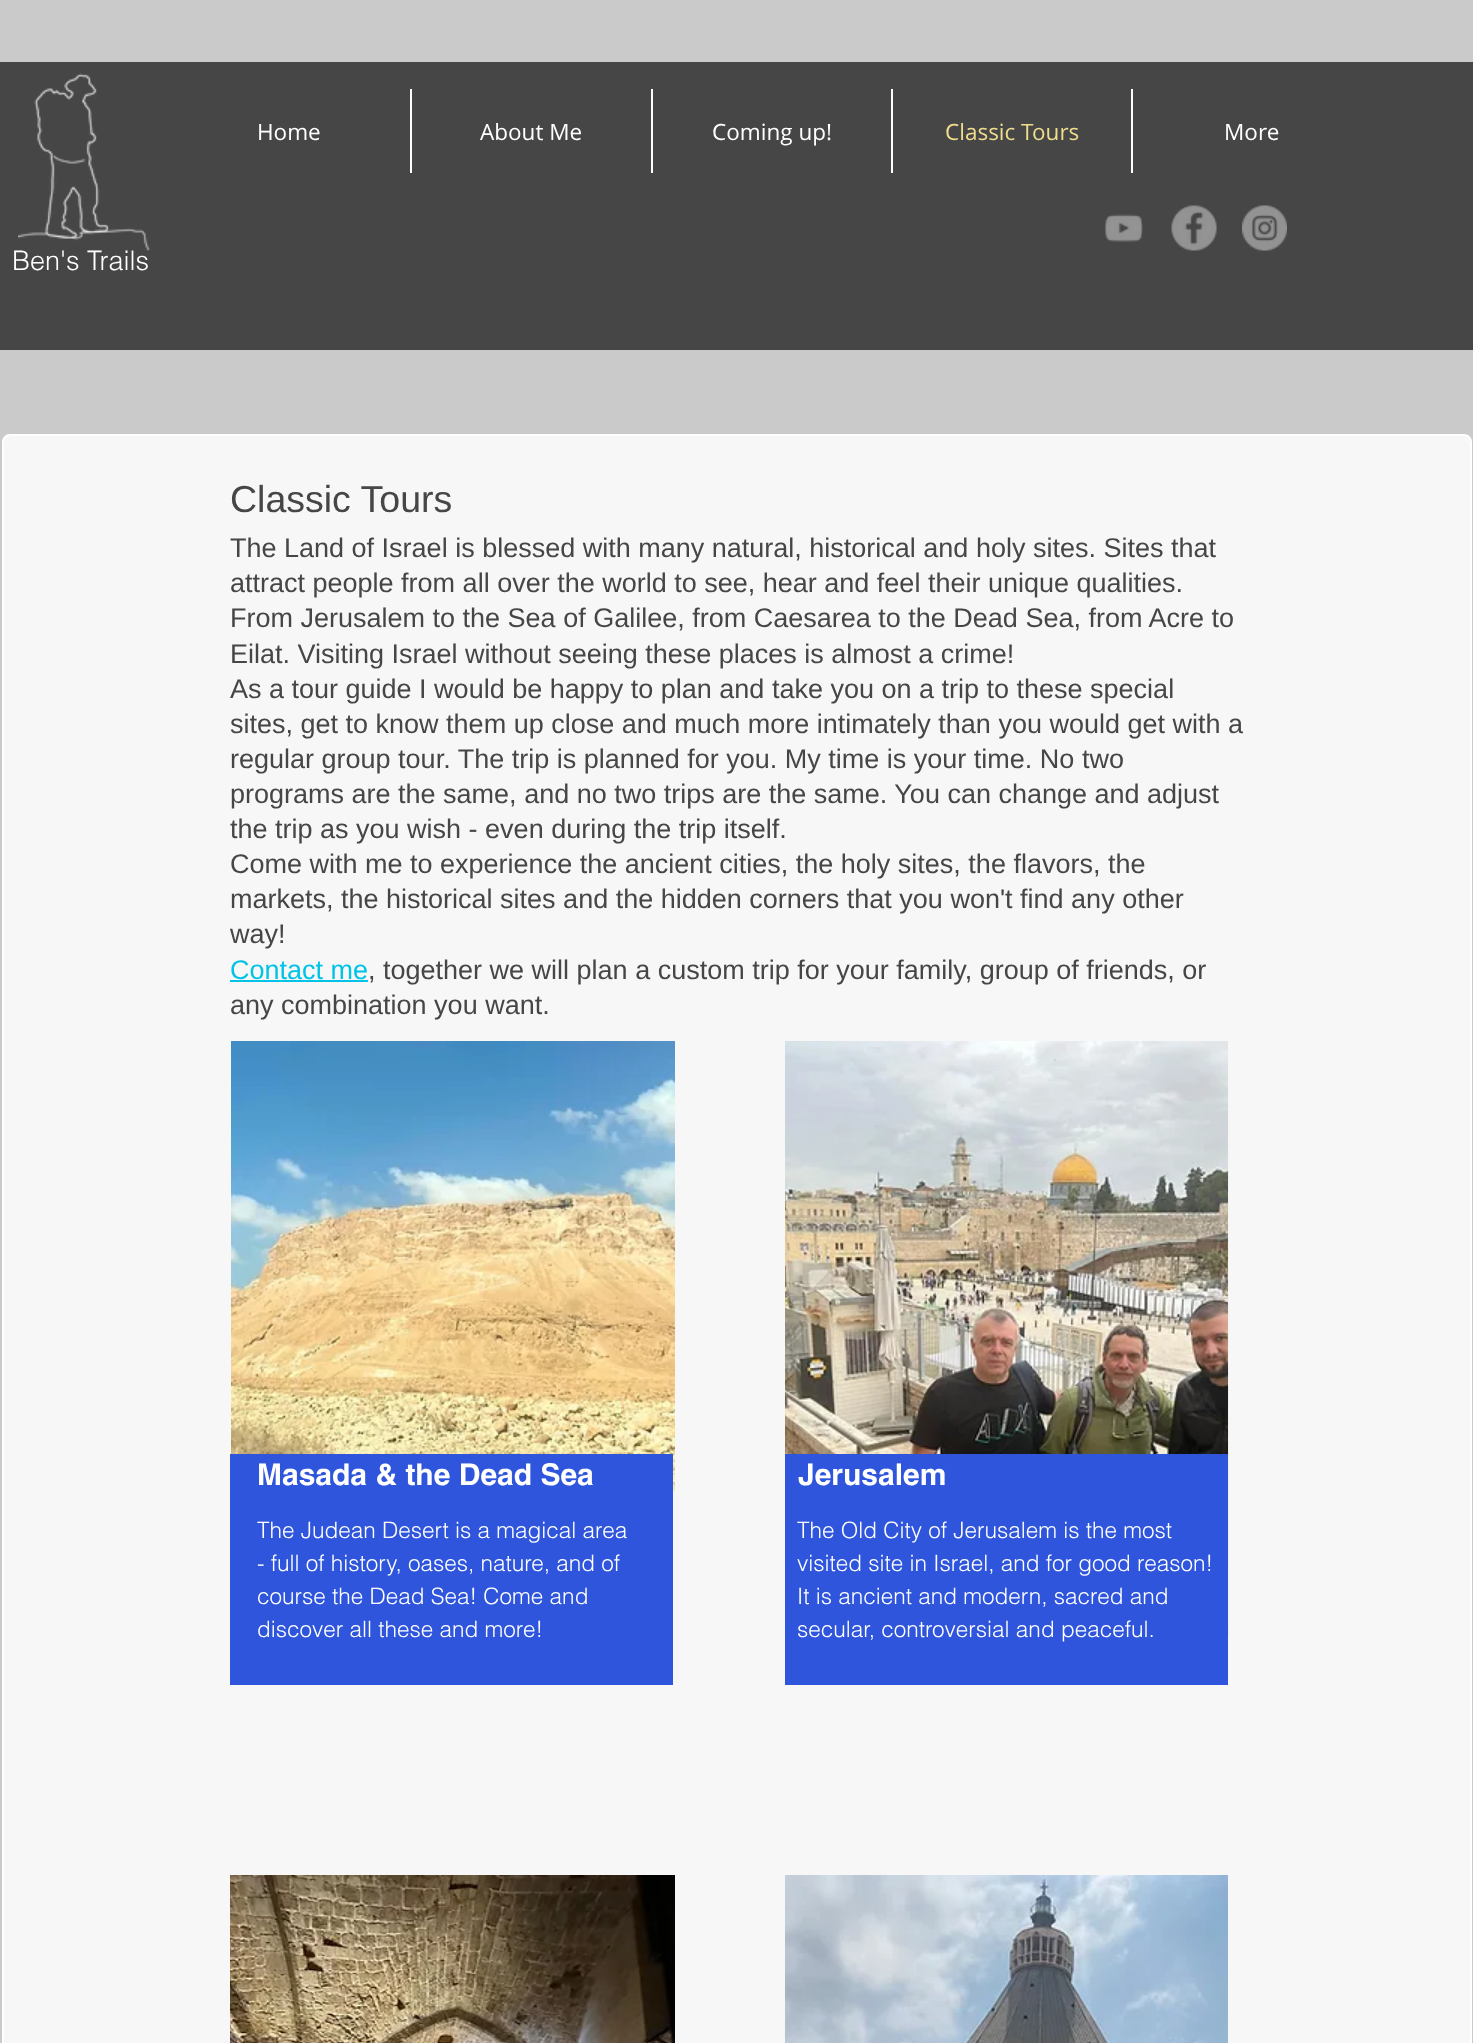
<svg xmlns="http://www.w3.org/2000/svg" width="1473" height="2043">
<style>
.a{font:22.5px Open Sans;fill:#fff}
.b{font:22.5px Open Sans;fill:#efdd8d}
.c{font:300 27px helvetica;fill:#fff}
.d{font:37.5px Liberation Sans;fill:#464646}
.e{font:27px Liberation Sans;fill:#464646}
.f{font:27px Liberation Sans;fill:#00c3e6}
.g{font:bold 30px helvetica;fill:#fff}
.h{font:300 22.5px helvetica;fill:#fff}
</style>
<rect width="100%" height="100%" fill="#cacaca"/>
<path fill="#464646" d="M0 62h1473v288H0z"/>
<path fill="#fff" d="M410 89h2v84H410z"/>
<path fill="#fff" d="M651 89h2v84H651z"/>
<path fill="#fff" d="M891 89h2v84H891z"/>
<path fill="#fff" d="M1131 89h2v84H1131z"/>
<image href="2.png" x="1104" y="214" width="39" height="28"/>
<image href="3.png" x="1171" y="205" width="46" height="46"/>
<image href="4.png" x="1242" y="205" width="45" height="46"/>
<rect fill="#f7f7f7" stroke="#fff" stroke-width="2" x="3" y="435" width="1468" height="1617" rx="7"/>
<path fill="#00c3e6" d="M230 980h138v2H230z"/>
<image href="5.png" x="231" y="1041" width="444" height="450"/>
<path fill="#2e55dc" d="M230 1454h443v231H230z"/>
<image href="6.png" x="785" y="1041" width="444" height="595"/>
<path fill="#2e55dc" d="M785 1454h443v231H785z"/>
<image href="7.png" x="230" y="1875" width="445" height="168"/>
<image href="8.png" x="785" y="1875" width="443" height="168"/>
<text class="a" x="257" y="140">Home</text>
<text class="a" x="480" y="140">About Me</text>
<text class="a" x="712" y="140">Coming up!</text>
<text class="b" x="945" y="140">Classic Tours</text>
<text class="a" x="1224" y="140">More</text>
<text class="c" x="12" y="270">Ben's Trails</text>
<image href="1.png" x="18" y="73" width="133" height="178"/>
<text class="d" x="230" y="512">Classic Tours</text>
<text class="e" x="230" y="557">The Land of Israel is blessed with many natural, historical and holy sites. Sites that</text>
<text class="e" x="230" y="592">attract people from all over the world to see, hear and feel their unique qualities.</text>
<text class="e" x="230" y="627">From Jerusalem to the Sea of Galilee, from Caesarea to the Dead Sea, from Acre to</text>
<text class="e" x="230" y="663">Eilat. Visiting Israel without seeing these places is almost a crime!</text>
<text class="e" x="230" y="698">As a tour guide I would be happy to plan and take you on a trip to these special</text>
<text class="e" x="230" y="733">sites, get to know them up close and much more intimately than you would get with a</text>
<text class="e" x="230" y="768">regular group tour. The trip is planned for you. My time is your time. No two</text>
<text class="e" x="230" y="803">programs are the same, and no two trips are the same. You can change and adjust</text>
<text class="e" x="230" y="838">the trip as you wish - even during the trip itself.</text>
<text class="e" x="230" y="873">Come with me to experience the ancient cities, the holy sites, the flavors, the</text>
<text class="e" x="230" y="908">markets, the historical sites and the hidden corners that you won't find any other</text>
<text class="e" x="230" y="943">way!</text>
<text class="f" x="230" y="979">Contact me</text>
<text class="e" x="368" y="979">, together we will plan a custom trip for your family, group of friends, or</text>
<text class="e" x="230" y="1014">any combination you want.</text>
<text class="g" x="257" y="1485">Masada &amp; the Dead Sea</text>
<text class="h" x="257" y="1538">The Judean Desert is a magical area</text>
<text class="h" x="257" y="1571">- full of history, oases, nature, and of</text>
<text class="h" x="257" y="1604">course the Dead Sea! Come and</text>
<text class="h" x="257" y="1637">discover all these and more!</text>
<text class="g" x="798" y="1485">Jerusalem</text>
<text class="h" x="797" y="1538">The Old City of Jerusalem is the most</text>
<text class="h" x="797" y="1571">visited site in Israel, and for good reason!</text>
<text class="h" x="797" y="1604">It is ancient and modern, sacred and</text>
<text class="h" x="797" y="1637">secular, controversial and peaceful.</text>
</svg>
